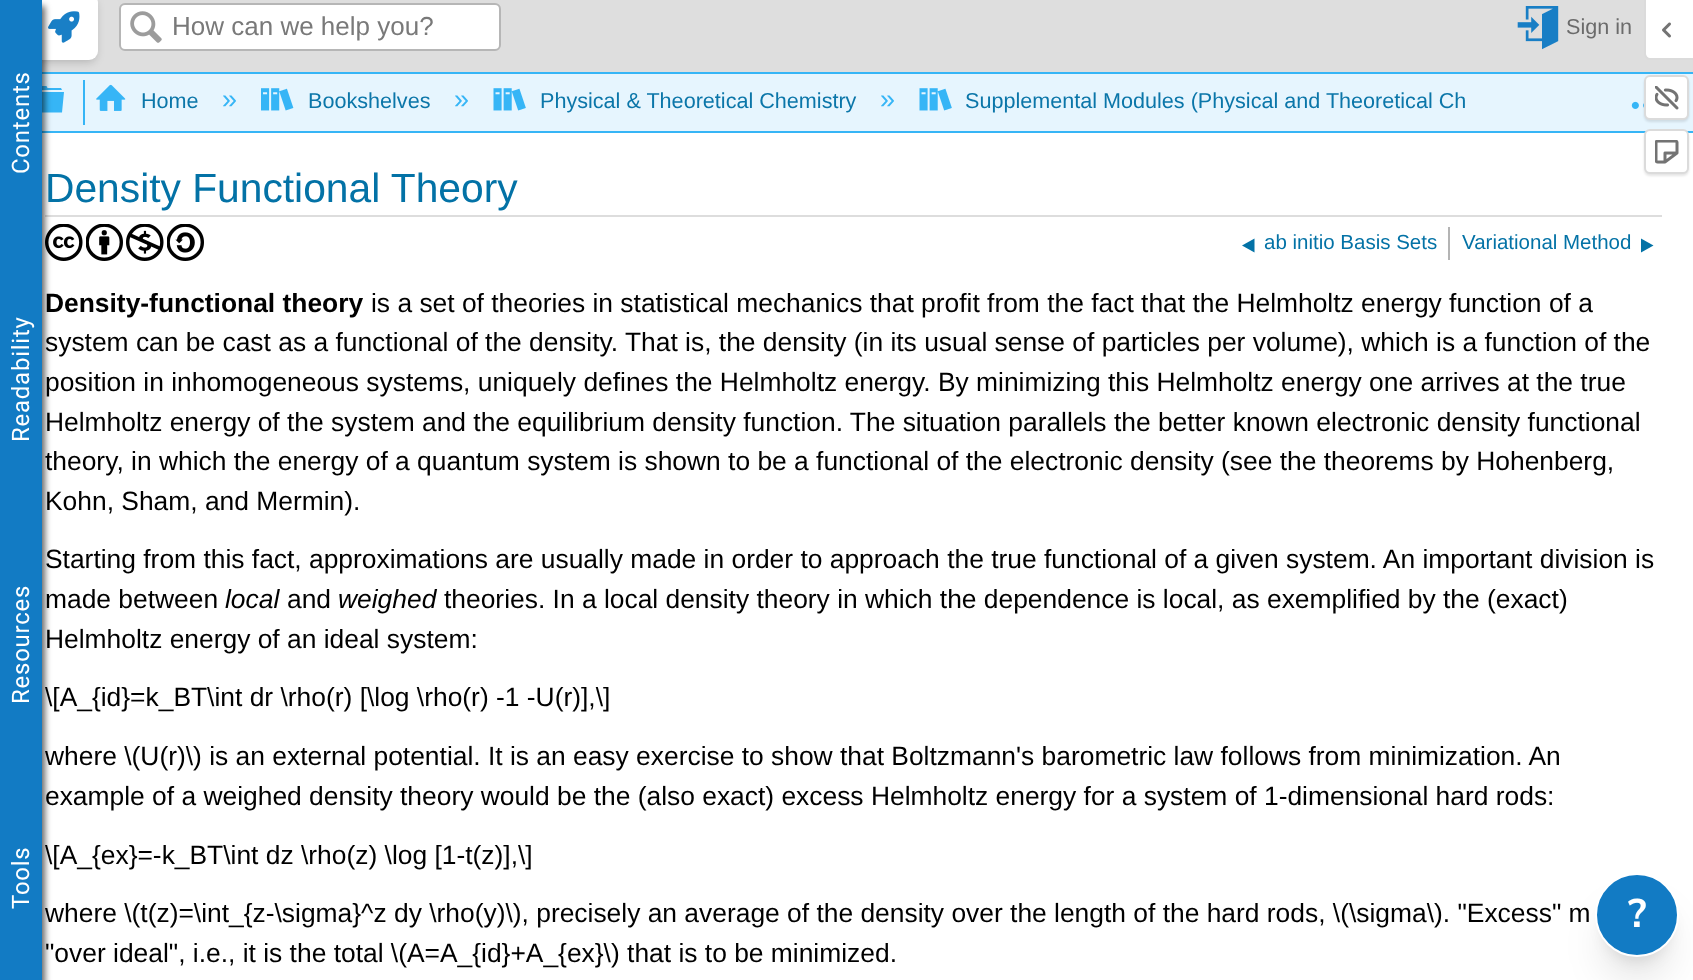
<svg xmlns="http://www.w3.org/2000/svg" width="1693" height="980">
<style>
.a{font:24px Roboto;letter-spacing:0.75px;fill:#fff}
.b{font:26px Liberation Sans;fill:#797979}
.c{font:21.6px Liberation Sans;fill:#6b6b6b}
.d{font:21.6px Liberation Sans;fill:#0b76a9}
.e{font:27px Liberation Sans;fill:#36b5f6}
.f{font:40.75px Liberation Sans;fill:#0372a6}
.g{font:20.5px Liberation Sans;fill:#0372a6}
.h{font:bold 26.4px Liberation Sans;fill:#000}
.i{font:26.4px Liberation Sans;fill:#000}
.j{font:italic 26.4px Liberation Sans;fill:#000}
.k{font:bold 40px Nunito Sans;fill:#fff}
</style>
<rect width="100%" height="100%" fill="#fff"/>
<path fill="#dedede" d="M42 0h1651v72H42z"/>
<path fill="#e6f5fe" d="M42 74h1651v57H42z"/>
<path fill="#36b5f6" d="M42 72h1651v2H42z"/>
<rect fill="#08080833" filter="blur(4px)" x="33" y="-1" width="63" height="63" rx="8"/>
<rect fill="#fff" x="32" y="-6" width="66" height="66" rx="9"/>
<image href="1.png" x="48" y="11" width="32" height="32"/>
<path fill="#36b5f6" d="M42 131h1651v2H42z"/>
<path fill="#36b5f6" fill-rule="evenodd" d="M32 97v-5h32l-2 20.5h-28.5zm29-9h-13.5l-1-2h-11l-2 4h28.5z"/>
<path fill="#ddd" d="M45 215h1617v2H45z"/>
<image href="8.png" x="45" y="224" width="38" height="37"/>
<path fill="#00000099" filter="blur(3px)" d="M3 6h42v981H3z"/>
<path fill="#127bc4" d="M0 0h42v980H0z"/>
<rect fill="#fff" stroke="#b6b6b6" stroke-width="2" x="120" y="4" width="380" height="46" rx="5"/>
<image href="2.png" x="130" y="11" width="32" height="32"/>
<image href="3.png" x="1517" y="6" width="42" height="44"/>
<path fill="#36b5f6" d="M83 80h2v45H83z"/>
<image href="4.png" x="96" y="84" width="30" height="27"/>
<image href="5.png" x="261" y="88" width="33" height="23"/>
<image href="6.png" x="493" y="88" width="33" height="23"/>
<image href="6.png" x="919" y="88" width="33" height="23"/>
<image href="7.png" x="1631" y="101" width="13" height="8"/>
<image href="9.png" x="86" y="224" width="37" height="37"/>
<image href="10.png" x="126" y="224" width="38" height="37"/>
<image href="11.png" x="167" y="224" width="37" height="37"/>
<path fill="#b4b4b4" d="M1448 227h2v33H1448z"/>
<path fill="#0372a6" d="M1254.5 238.5v14l-12.5-7z"/>
<path fill="#0372a6" d="M1641 238.5v14l12.5-7z"/>
<rect fill="#0000001a" filter="blur(7.5px)" x="1604" y="894" width="66" height="66" rx="33"/>
<rect fill="#0000001a" filter="blur(19px)" x="1602" y="911" width="69" height="69" rx="34.5"/>
<circle fill="#127bc4" stroke="#fff" stroke-width="2" cx="1637" cy="915" r="41"/>
<path fill="#fff" d="M1646 0h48v59h-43c-3 0-5-2-5-5z"/>
<path fill="#dbdbdb" fill-rule="evenodd" d="M1644 0h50v60h-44c-3 0-6-3-6-6zm2 0h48v58h-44c-2 0-4-2-4-4z"/>
<image href="12.png" x="1662" y="22" width="9" height="16"/>
<rect fill="#0000001a" filter="blur(1px)" x="1644" y="77" width="45" height="45" rx="6"/>
<rect fill="#fff" stroke="#dbdbdb" stroke-width="2" x="1645" y="76" width="43" height="43" rx="5"/>
<image href="13.png" x="1655" y="86" width="24" height="24"/>
<rect fill="#0000001a" filter="blur(1px)" x="1644" y="131" width="45" height="45" rx="6"/>
<rect fill="#fff" stroke="#dbdbdb" stroke-width="2" x="1645" y="130" width="43" height="43" rx="5"/>
<image href="14.png" x="1655" y="140" width="24" height="24"/>
<text class="a" x="29" y="174" transform="rotate(-90 29 174)">Contents</text>
<text class="a" x="29" y="442" transform="rotate(-90 29 442)">Readability</text>
<text class="a" x="29" y="704" transform="rotate(-90 29 704)">Resources</text>
<text class="a" x="29" y="909" transform="rotate(-90 29 909)">Tools</text>
<text class="b" x="172" y="35">How can we help you?</text>
<text class="c" x="1566" y="34">Sign in</text>
<text class="d" x="141" y="108">Home</text>
<text class="e" x="222" y="108">»</text>
<text class="d" x="308" y="108">Bookshelves</text>
<text class="e" x="454" y="108">»</text>
<text class="d" x="540" y="108">Physical &amp; Theoretical Chemistry</text>
<text class="e" x="880" y="108">»</text>
<text class="d" x="965" y="108">Supplemental Modules (Physical and Theoretical Ch</text>
<text class="f" x="45" y="202">Density Functional Theory</text>
<text class="g" x="1264" y="249">ab initio Basis Sets</text>
<text class="g" x="1462" y="249">Variational Method</text>
<text class="h" x="45" y="312">Density-functional theory</text>
<text class="i" x="371" y="312">is a set of theories in statistical mechanics that profit from the fact that the Helmholtz energy function of a</text>
<text class="i" x="45" y="351">system can be cast as a functional of the density. That is, the density (in its usual sense of particles per volume), which is a function of the</text>
<text class="i" x="45" y="391">position in inhomogeneous systems, uniquely defines the Helmholtz energy. By minimizing this Helmholtz energy one arrives at the true</text>
<text class="i" x="45" y="431">Helmholtz energy of the system and the equilibrium density function. The situation parallels the better known electronic density functional</text>
<text class="i" x="45" y="470">theory, in which the energy of a quantum system is shown to be a functional of the electronic density (see the theorems by Hohenberg,</text>
<text class="i" x="45" y="510">Kohn, Sham, and Mermin).</text>
<text class="i" x="45" y="568">Starting from this fact, approximations are usually made in order to approach the true functional of a given system. An important division is</text>
<text class="i" x="45" y="608">made between</text>
<text class="j" x="225" y="608">local</text>
<text class="i" x="287" y="608">and</text>
<text class="j" x="338" y="608">weighed</text>
<text class="i" x="444" y="608">theories. In a local density theory in which the dependence is local, as exemplified by the (exact)</text>
<text class="i" x="45" y="648">Helmholtz energy of an ideal system:</text>
<text class="i" x="45" y="706">\[A_{id}=k_BT\int dr \rho(r) [\log \rho(r) -1 -U(r)],\]</text>
<text class="i" x="45" y="765">where \(U(r)\) is an external potential. It is an easy exercise to show that Boltzmann's barometric law follows from minimization. An</text>
<text class="i" x="45" y="805">example of a weighed density theory would be the (also exact) excess Helmholtz energy for a system of 1-dimensional hard rods:</text>
<text class="i" x="45" y="864">\[A_{ex}=-k_BT\int dz \rho(z) \log [1-t(z)],\]</text>
<text class="i" x="45" y="922">where \(t(z)=\int_{z-\sigma}^z dy \rho(y)\), precisely an average of the density over the length of the hard rods, \(\sigma\). "Excess" m</text>
<text class="i" x="45" y="962">"over ideal", i.e., it is the total \(A=A_{id}+A_{ex}\) that is to be minimized.</text>
<text class="k" x="1628" y="927">?</text>
</svg>
